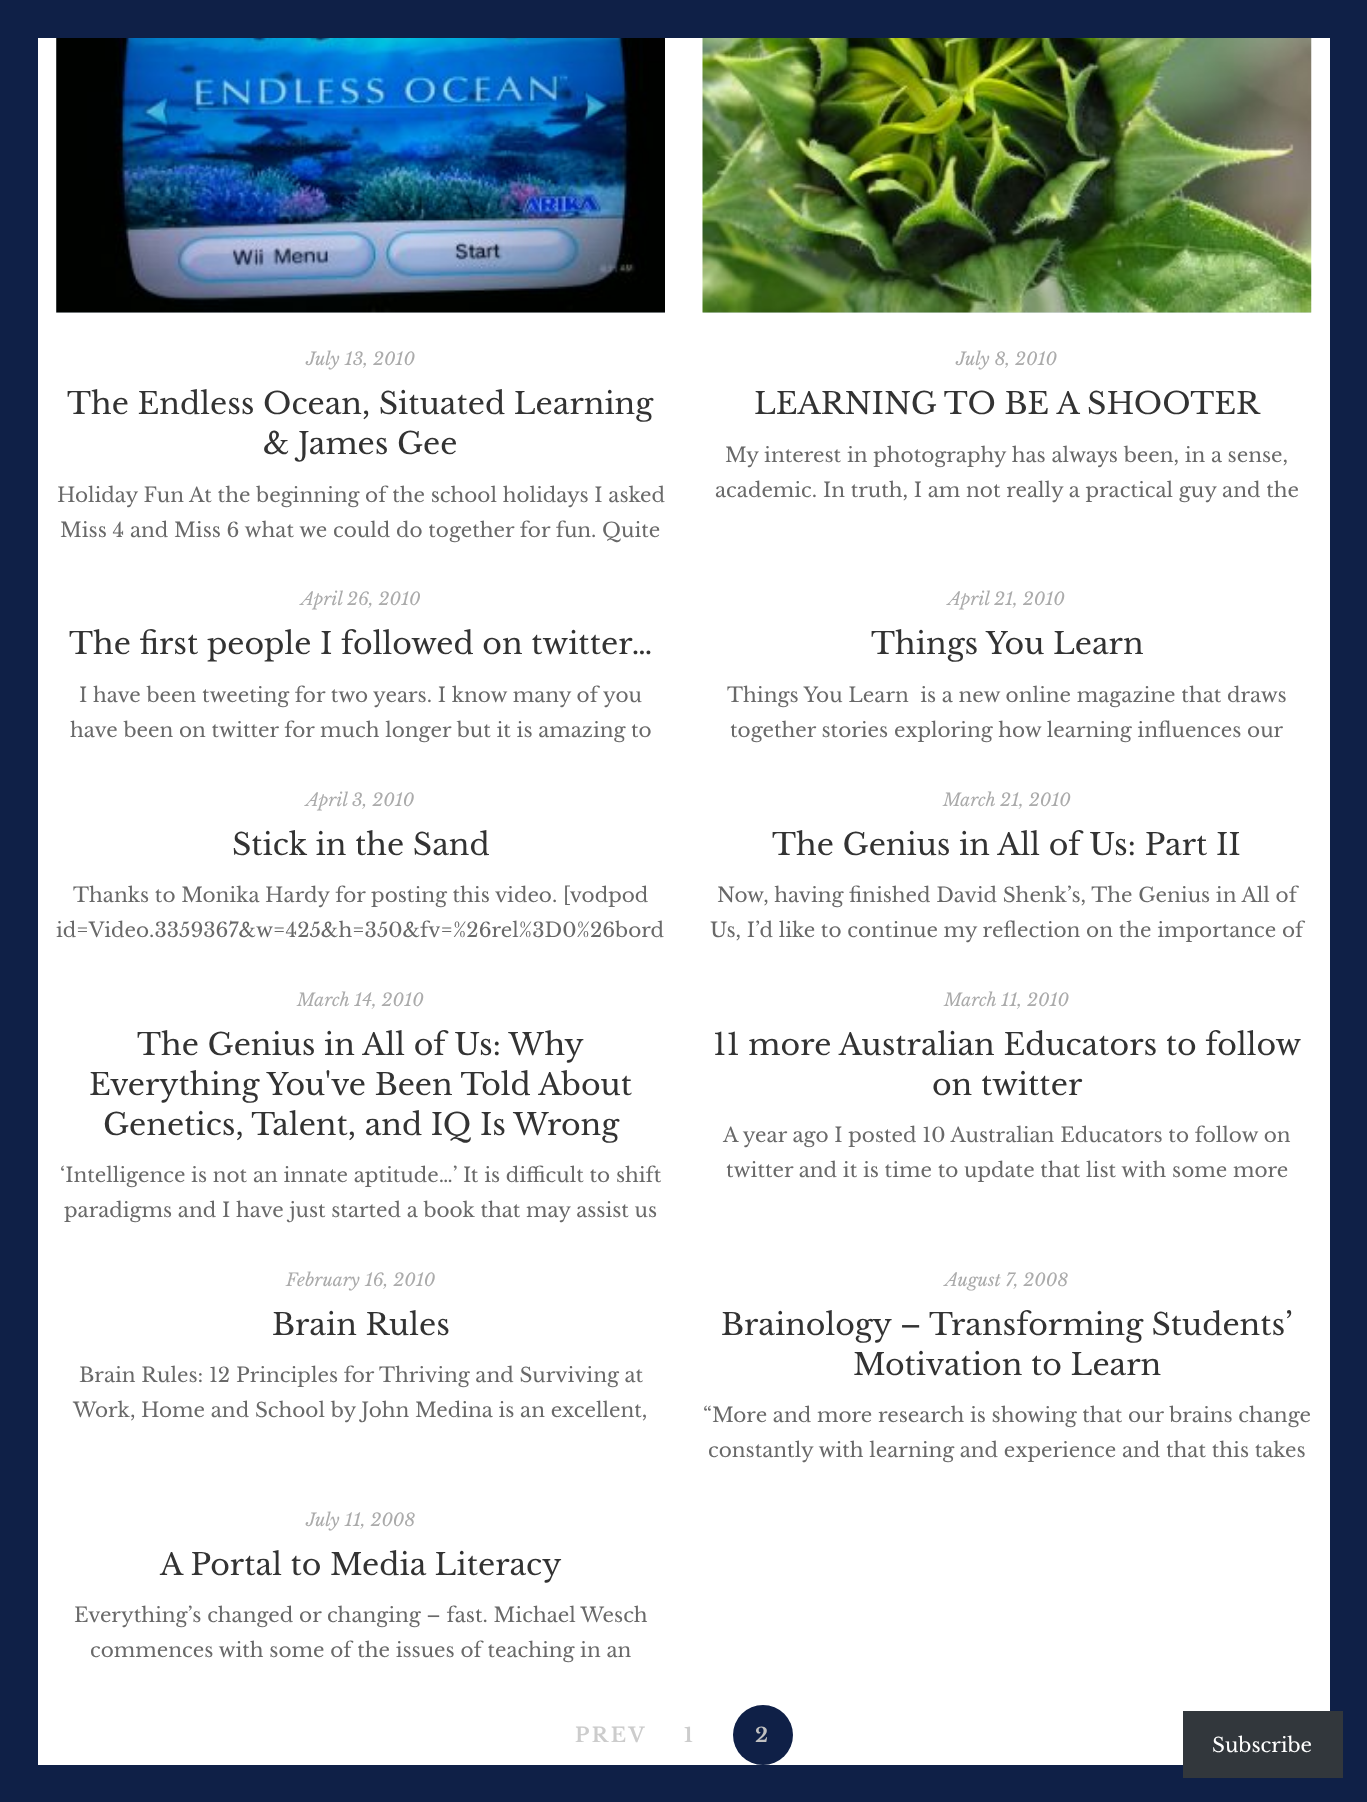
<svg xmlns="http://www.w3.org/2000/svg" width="1367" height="1802">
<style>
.a{font:italic 17.5px Libre Baskerville;fill:#ababab}
.b{font:30px Libre Baskerville;fill:#333}
.c{font:20px Libre Baskerville;fill:#696969}
.d{font:bold 20px Libre Baskerville;letter-spacing:2.5px;fill:#ccc}
.e{font:bold 20px Libre Baskerville;letter-spacing:2.5px;fill:#c0c0c0}
.f{font:20px Libre Baskerville;fill:#fff}
</style>
<rect width="100%" height="100%" fill="#0f2047"/>
<path fill="#fff" d="M38 38h1292v1727H38z"/>
<path fill="#e0e8ee" d="M56 38h609v275H56z"/>
<image href="1.png" x="56" y="38" width="609" height="275"/>
<path fill="#e0e8ee" d="M703 312h608v1H703z"/>
<image href="2.png" x="702" y="38" width="610" height="275"/>
<circle fill="#0f2047" cx="763" cy="1735" r="30"/>
<path fill="#32373c" d="M1183 1711h160v67H1183z"/>
<text class="a" x="306" y="365">July 13, 2010</text>
<text class="b" x="67" y="414">The Endless Ocean, Situated Learning</text>
<text class="b" x="263" y="454">&amp; James Gee</text>
<text class="c" x="57" y="502">Holiday Fun At the beginning of the school holidays I asked</text>
<text class="c" x="60" y="537">Miss 4 and Miss 6 what we could do together for fun. Quite</text>
<text class="a" x="956" y="365">July 8, 2010</text>
<text class="b" x="754" y="414">LEARNING TO BE A SHOOTER</text>
<text class="c" x="725" y="462">My interest in photography has always been, in a sense,</text>
<text class="c" x="715" y="497">academic. In truth, I am not really a practical guy and the</text>
<text class="a" x="301" y="605">April 26, 2010</text>
<text class="b" x="69" y="654">The first people I followed on twitter…</text>
<text class="c" x="79" y="702">I have been tweeting for two years. I know many of you</text>
<text class="c" x="70" y="737">have been on twitter for much longer but it is amazing to</text>
<text class="a" x="948" y="605">April 21, 2010</text>
<text class="b" x="871" y="654">Things You Learn</text>
<text class="c" xml:space="preserve" x="727" y="702">Things You Learn  is a new online magazine that draws</text>
<text class="c" x="730" y="737">together stories exploring how learning influences our</text>
<text class="a" x="306" y="806">April 3, 2010</text>
<text class="b" x="232" y="855">Stick in the Sand</text>
<text class="c" x="73" y="902">Thanks to Monika Hardy for posting this video. [vodpod</text>
<text class="c" x="56" y="937">id=Video.3359367&amp;w=425&amp;h=350&amp;fv=%26rel%3D0%26bord</text>
<text class="a" x="943" y="806">March 21, 2010</text>
<text class="b" x="772" y="855">The Genius in All of Us: Part II</text>
<text class="c" x="717" y="902">Now, having finished David Shenk’s, The Genius in All of</text>
<text class="c" x="710" y="937">Us, I’d like to continue my reflection on the importance of</text>
<text class="a" x="297" y="1006">March 14, 2010</text>
<text class="b" x="137" y="1055">The Genius in All of Us: Why</text>
<text class="b" x="89" y="1095">Everything You've Been Told About</text>
<text class="b" x="103" y="1135">Genetics, Talent, and IQ Is Wrong</text>
<text class="c" x="60" y="1182">‘Intelligence is not an innate aptitude…’ It is difficult to shift</text>
<text class="c" x="64" y="1217">paradigms and I have just started a book that may assist us</text>
<text class="a" x="944" y="1006">March 11, 2010</text>
<text class="b" x="713" y="1055">11 more Australian Educators to follow</text>
<text class="b" x="932" y="1095">on twitter</text>
<text class="c" x="723" y="1142">A year ago I posted 10 Australian Educators to follow on</text>
<text class="c" x="726" y="1177">twitter and it is time to update that list with some more</text>
<text class="a" x="286" y="1286">February 16, 2010</text>
<text class="b" x="272" y="1335">Brain Rules</text>
<text class="c" x="79" y="1382">Brain Rules: 12 Principles for Thriving and Surviving at</text>
<text class="c" x="73" y="1417">Work, Home and School by John Medina is an excellent,</text>
<text class="a" x="945" y="1286">August 7, 2008</text>
<text class="b" x="721" y="1335">Brainology – Transforming Students’</text>
<text class="b" x="853" y="1375">Motivation to Learn</text>
<text class="c" x="703" y="1422">“More and more research is showing that our brains change</text>
<text class="c" x="708" y="1457">constantly with learning and experience and that this takes</text>
<text class="a" x="306" y="1526">July 11, 2008</text>
<text class="b" x="160" y="1575">A Portal to Media Literacy</text>
<text class="c" x="74" y="1622">Everything’s changed or changing – fast. Michael Wesch</text>
<text class="c" x="90" y="1657">commences with some of the issues of teaching in an</text>
<text class="d" x="575" y="1742">PREV</text>
<text class="d" x="684" y="1742">1</text>
<text class="e" x="755" y="1742">2</text>
<text class="f" x="1212" y="1752">Subscribe</text>
</svg>
